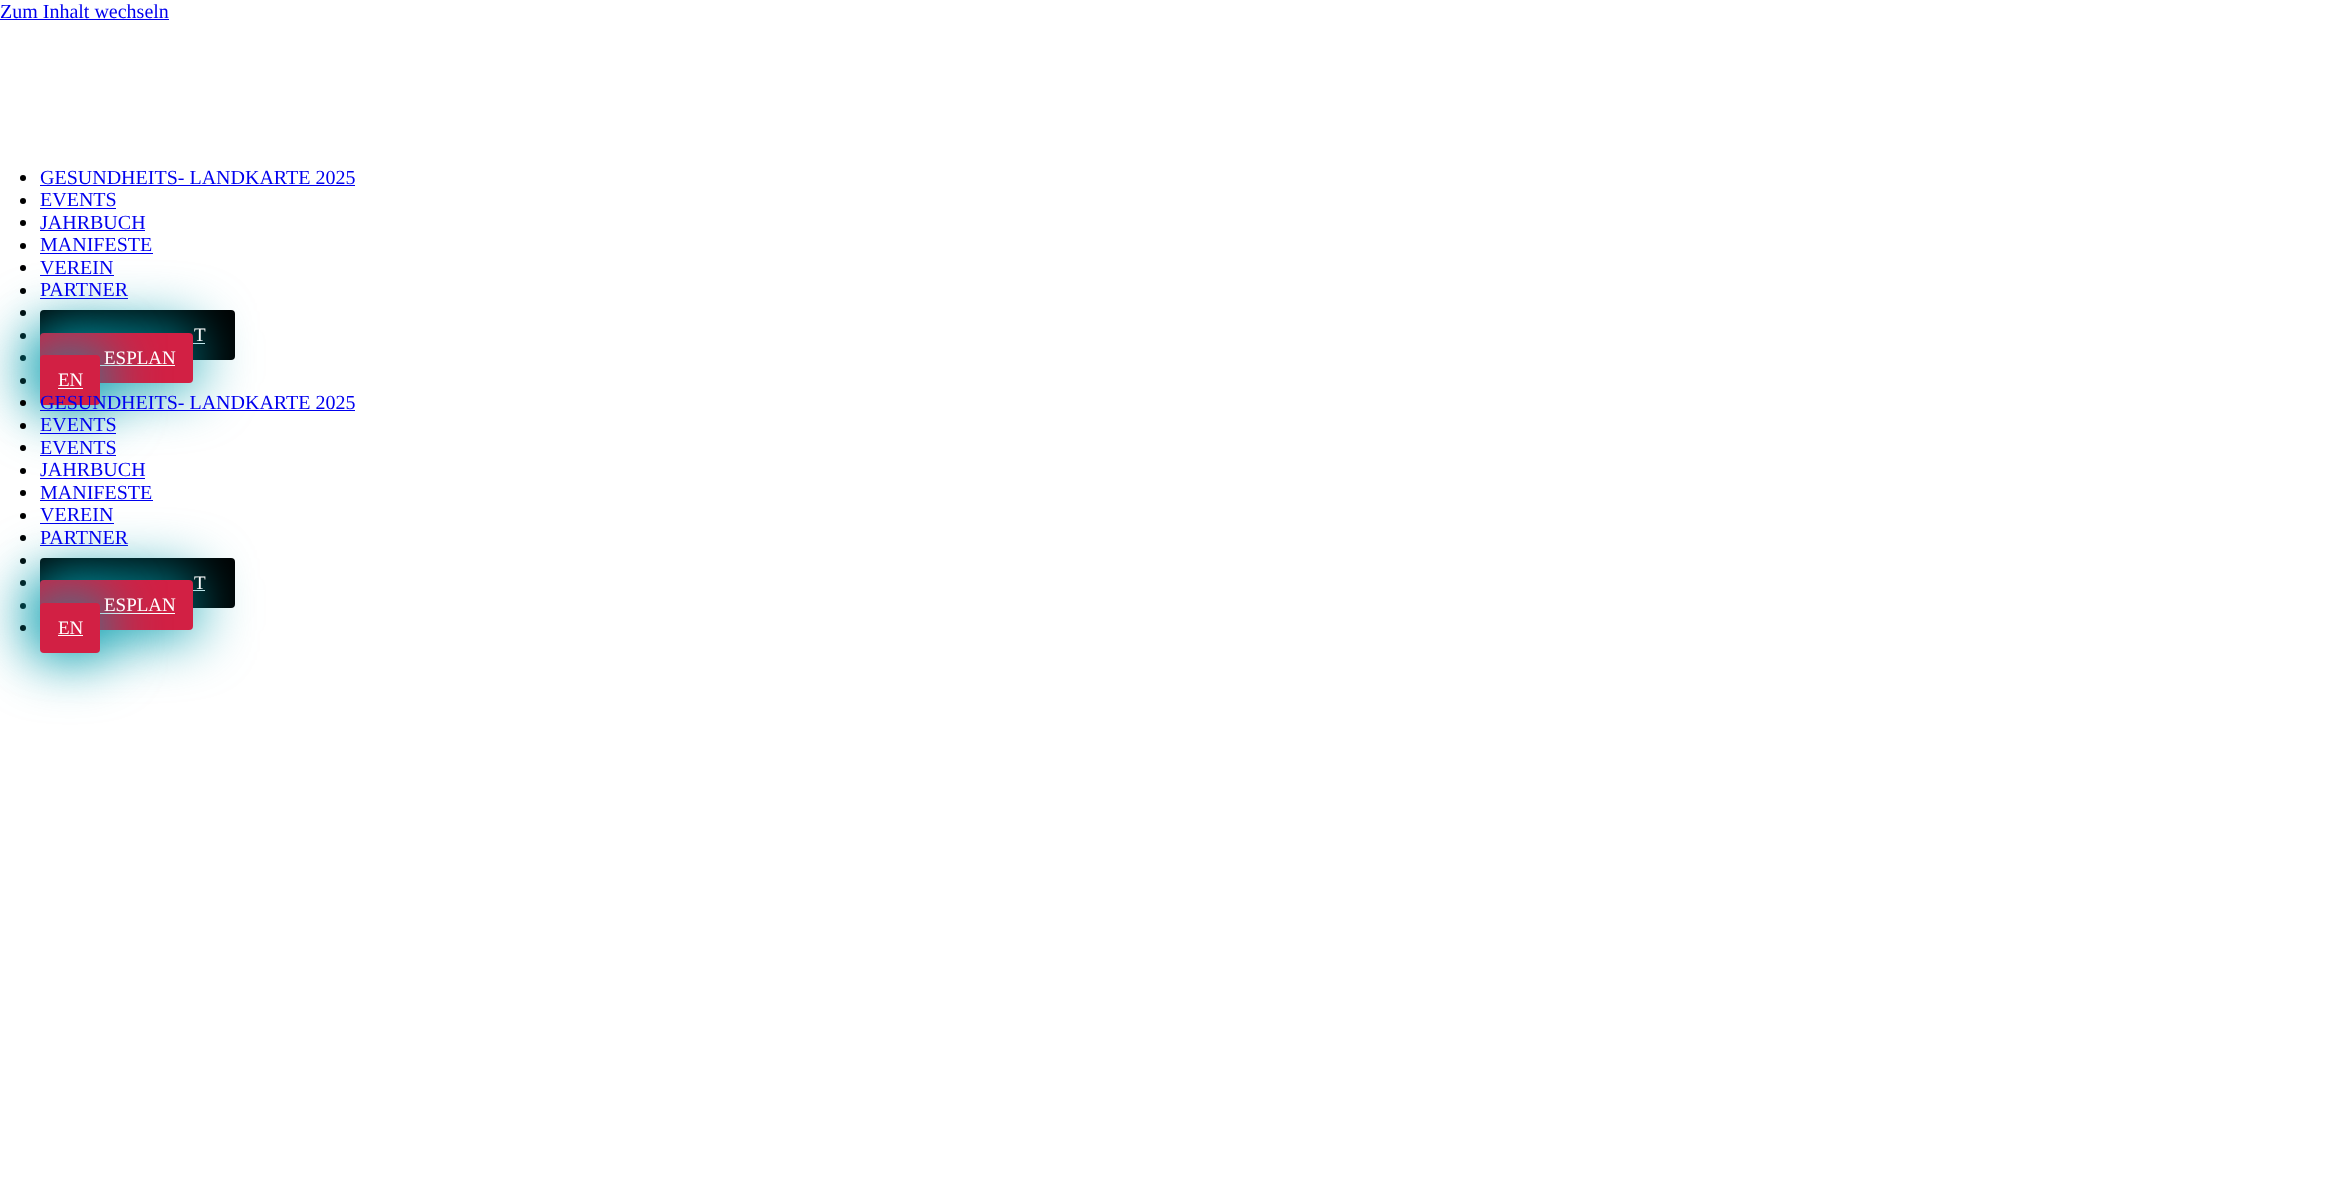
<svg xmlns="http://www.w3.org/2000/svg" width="2330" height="1195">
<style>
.a{font:20px Liberation Serif;fill:#00e}
.b{font:19px Liberation Serif;fill:#fff}
</style>
<rect width="100%" height="100%" fill="#fff"/>
<path fill="#00e" d="M0 19h169v1H0z"/>
<circle fill="#000" cx="23" cy="178" r="3"/>
<path fill="#00e" d="M40 185h315v1H40z"/>
<circle fill="#000" cx="23" cy="201" r="3"/>
<path fill="#00e" d="M40 208h76v1H40z"/>
<circle fill="#000" cx="23" cy="223" r="3"/>
<path fill="#00e" d="M40 230h105v1H40z"/>
<circle fill="#000" cx="23" cy="246" r="3"/>
<path fill="#00e" d="M40 253h113v1H40z"/>
<circle fill="#000" cx="23" cy="268" r="3"/>
<path fill="#00e" d="M40 275h74v1H40z"/>
<circle fill="#000" cx="23" cy="291" r="3"/>
<path fill="#00e" d="M40 298h88v1H40z"/>
<circle fill="#000" cx="23" cy="313" r="3"/>
<circle fill="#000" cx="23" cy="336" r="3"/>
<rect fill="#000" x="40" y="310" width="195" height="50" rx="4"/>
<path fill="#fff" d="M193 343h12v1H193z"/>
<circle fill="#000" cx="23" cy="358" r="3"/>
<rect fill="#009bac" filter="blur(29.5px)" x="36" y="329" width="160" height="57" rx="8"/>
<rect fill="#d22044" x="40" y="333" width="153" height="50" rx="4"/>
<path fill="#fff" d="M100 365h75v1H100z"/>
<circle fill="#000" cx="23" cy="381" r="3"/>
<rect fill="#009bac" filter="blur(29.5px)" x="36" y="351" width="68" height="58" rx="8"/>
<rect fill="#d22044" x="40" y="355" width="60" height="50" rx="4"/>
<path fill="#fff" d="M58 388h25v1H58z"/>
<circle fill="#000" cx="23" cy="403" r="3"/>
<path fill="#00e" d="M40 410h315v1H40z"/>
<circle fill="#000" cx="23" cy="426" r="3"/>
<path fill="#00e" d="M40 433h76v1H40z"/>
<circle fill="#000" cx="23" cy="448" r="3"/>
<path fill="#00e" d="M40 455h76v1H40z"/>
<circle fill="#000" cx="23" cy="471" r="3"/>
<path fill="#00e" d="M40 478h105v1H40z"/>
<circle fill="#000" cx="23" cy="493" r="3"/>
<path fill="#00e" d="M40 500h113v1H40z"/>
<circle fill="#000" cx="23" cy="516" r="3"/>
<path fill="#00e" d="M40 523h74v1H40z"/>
<circle fill="#000" cx="23" cy="538" r="3"/>
<path fill="#00e" d="M40 545h88v1H40z"/>
<circle fill="#000" cx="23" cy="561" r="3"/>
<circle fill="#000" cx="23" cy="583" r="3"/>
<rect fill="#000" x="40" y="558" width="195" height="50" rx="4"/>
<path fill="#fff" d="M193 590h12v1H193z"/>
<circle fill="#000" cx="23" cy="606" r="3"/>
<rect fill="#009bac" filter="blur(29.5px)" x="36" y="576" width="160" height="58" rx="8"/>
<rect fill="#d22044" x="40" y="580" width="153" height="50" rx="4"/>
<path fill="#fff" d="M100 613h75v1H100z"/>
<circle fill="#000" cx="23" cy="628" r="3"/>
<rect fill="#009bac" filter="blur(29.5px)" x="36" y="599" width="68" height="57" rx="8"/>
<rect fill="#d22044" x="40" y="603" width="60" height="50" rx="4"/>
<path fill="#fff" d="M58 635h25v1H58z"/>
<text class="a" x="0" y="18">Zum Inhalt wechseln</text>
<text class="a" x="40" y="184">GESUNDHEITS- LANDKARTE 2025</text>
<text class="a" x="40" y="206">EVENTS</text>
<text class="a" x="40" y="229">JAHRBUCH</text>
<text class="a" x="40" y="251">MANIFESTE</text>
<text class="a" x="40" y="274">VEREIN</text>
<text class="a" x="40" y="296">PARTNER</text>
<text class="b" x="194" y="341">T</text>
<text class="b" x="104" y="364">ESPLAN</text>
<text class="b" x="58" y="386">EN</text>
<text class="a" x="40" y="409">GESUNDHEITS- LANDKARTE 2025</text>
<text class="a" x="40" y="431">EVENTS</text>
<text class="a" x="40" y="454">EVENTS</text>
<text class="a" x="40" y="476">JAHRBUCH</text>
<text class="a" x="40" y="499">MANIFESTE</text>
<text class="a" x="40" y="521">VEREIN</text>
<text class="a" x="40" y="544">PARTNER</text>
<text class="b" x="194" y="589">T</text>
<text class="b" x="104" y="611">ESPLAN</text>
<text class="b" x="58" y="634">EN</text>
</svg>
